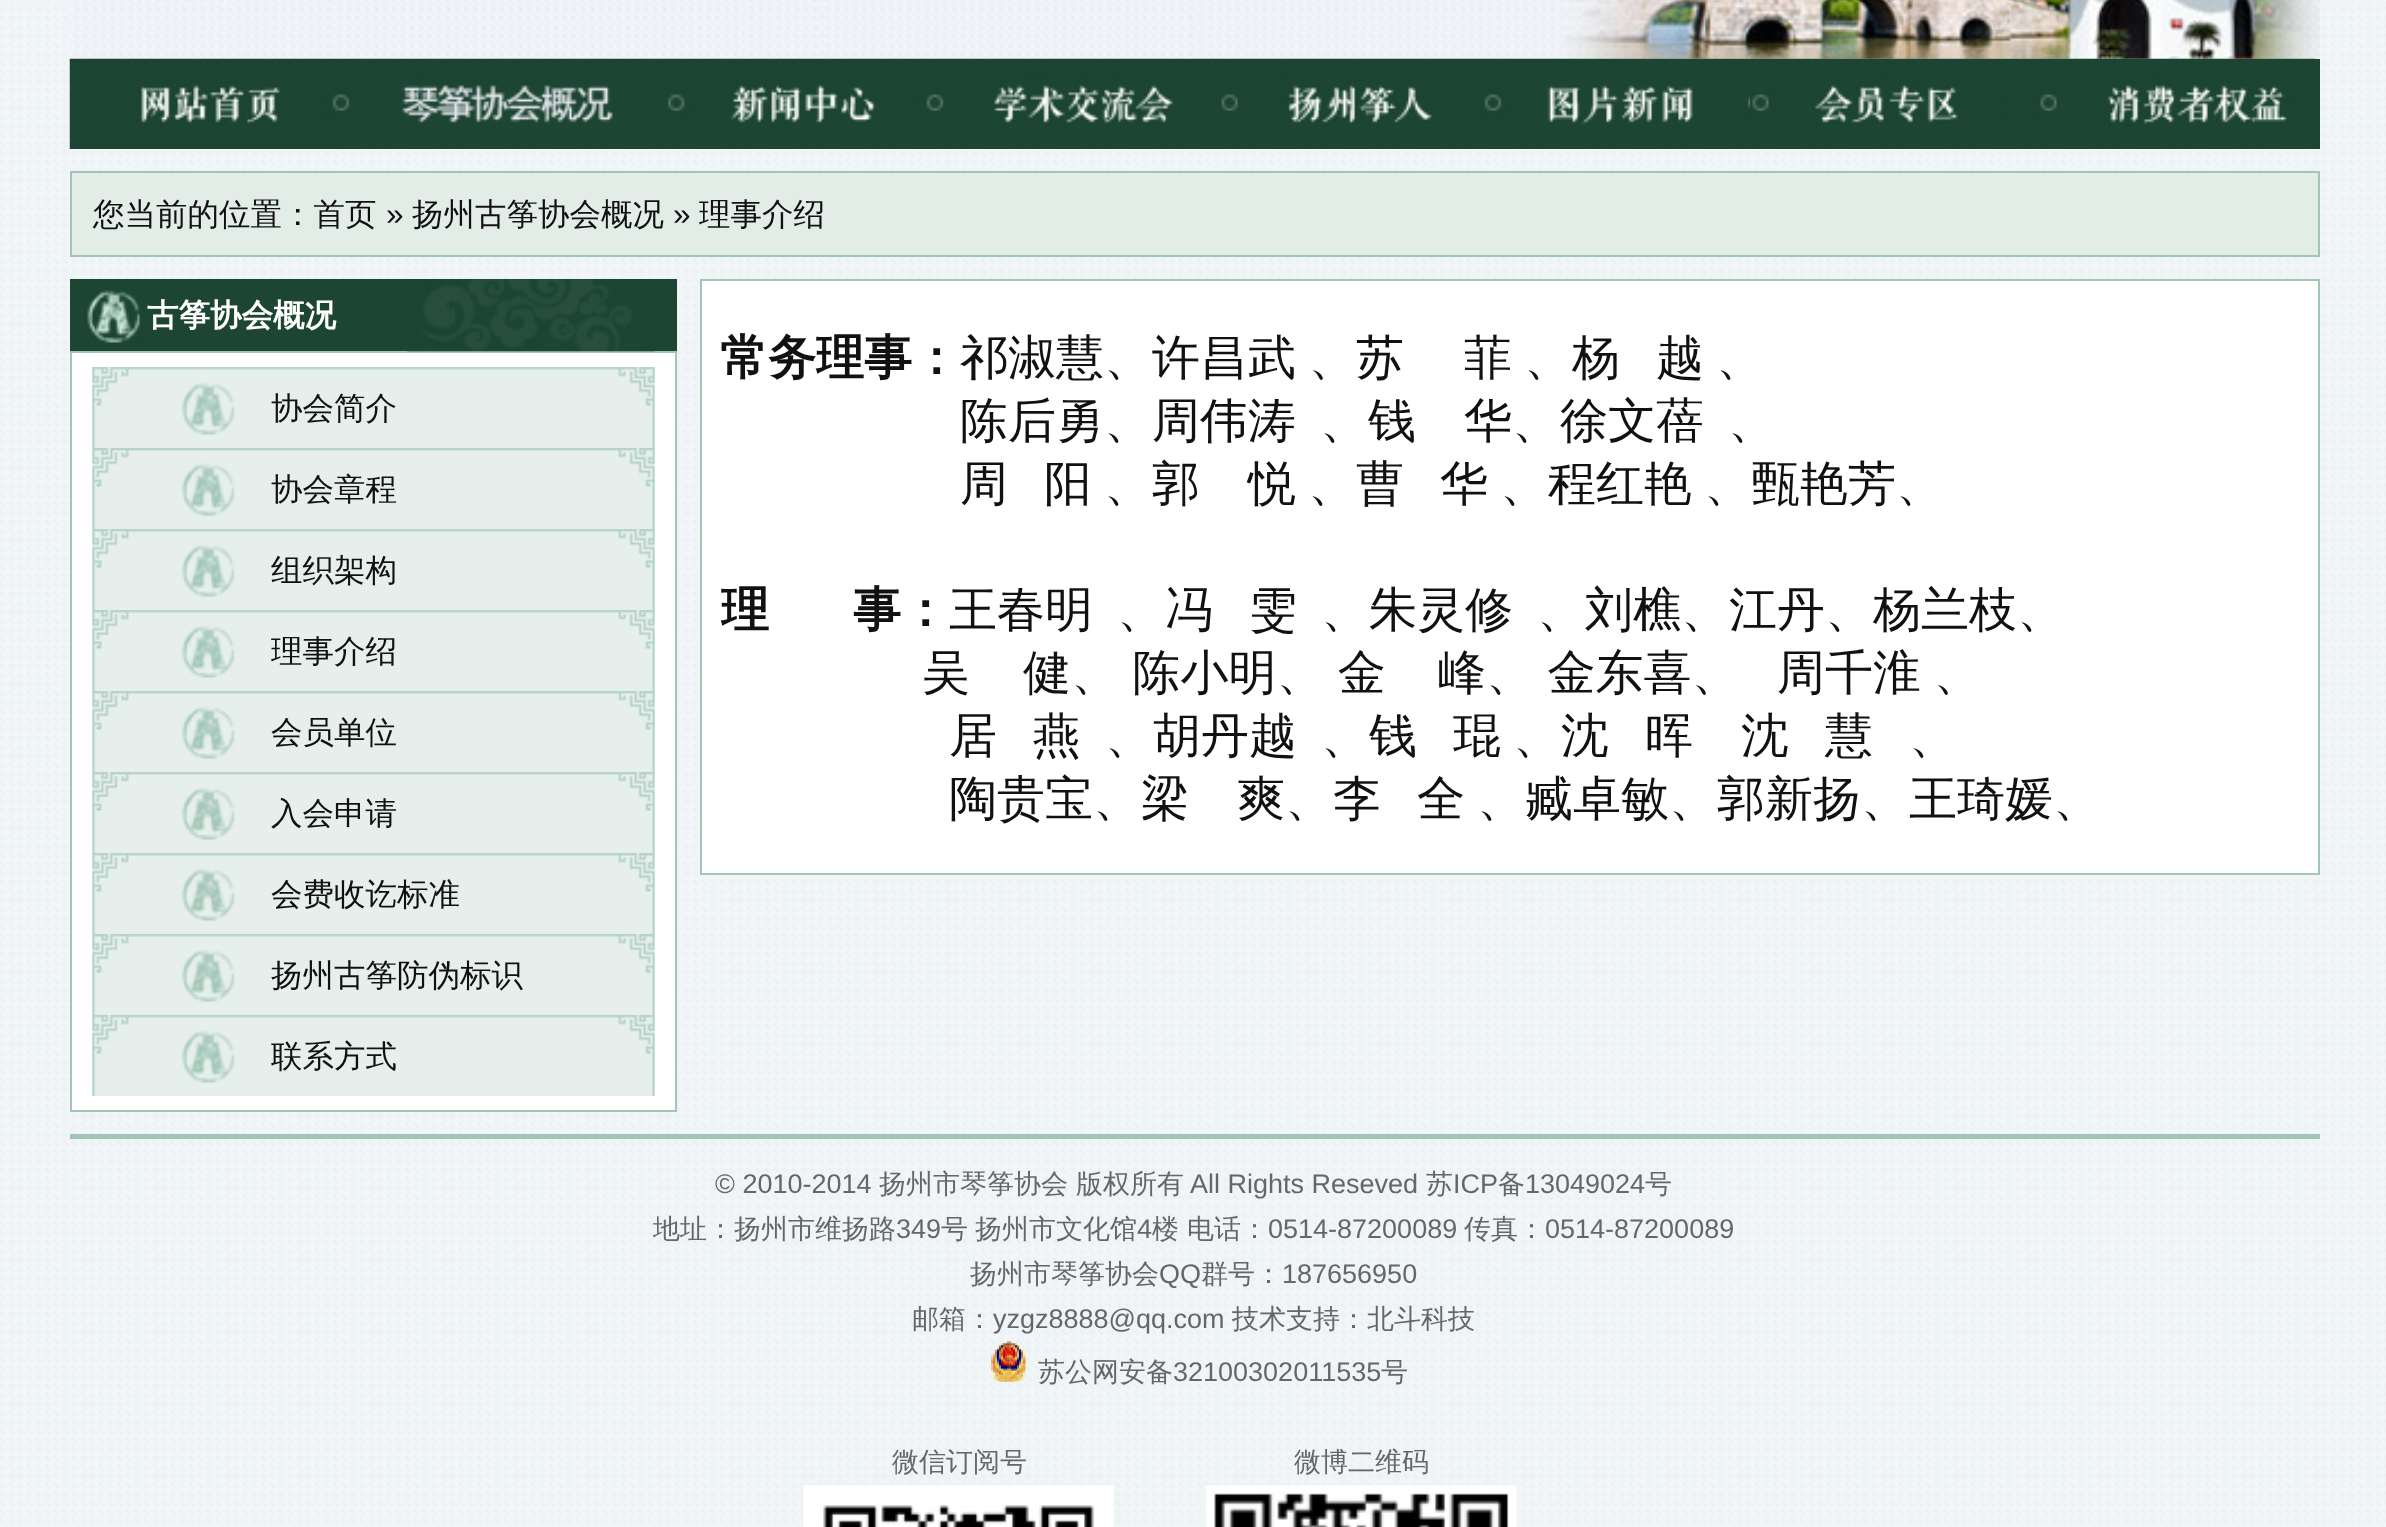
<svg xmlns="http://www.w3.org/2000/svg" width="2386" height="1527">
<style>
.a{font:500 31.5px WenQuanYi Zen Hei;fill:#111}
.b{font:31.5px Liberation Sans;fill:#111}
.c{font:bold 31.5px WenQuanYi Zen Hei;fill:#fff}
.d{font:bold 48px WenQuanYi Zen Hei;fill:#111}
.e{font:500 48px WenQuanYi Zen Hei;fill:#111}
.f{font:27px Liberation Sans;fill:#666}
.g{font:500 27px WenQuanYi Zen Hei;fill:#666}
</style>
<rect width="100%" height="100%" fill="#f0f5f8"/>
<image href="1.png" x="0" y="1" width="2386" height="1522"/>
<image href="2.png" x="70" y="0" width="2250" height="59"/>
<path fill="#1c4533" d="M70 59h2250v90H70z"/>
<image href="3.png" x="69" y="58" width="271" height="91"/>
<image href="4.png" x="339" y="58" width="336" height="65"/>
<image href="5.png" x="675" y="58" width="259" height="65"/>
<image href="6.png" x="933" y="58" width="296" height="66"/>
<image href="7.png" x="1228" y="58" width="264" height="66"/>
<image href="8.png" x="1491" y="58" width="260" height="67"/>
<image href="9.png" x="1750" y="58" width="260" height="66"/>
<image href="10.png" x="2009" y="58" width="307" height="67"/>
<path fill="#e2ede8" stroke="#a1c6b5" stroke-width="2" d="M71 172h2248v84H71z"/>
<path fill="#1c4533" d="M70 279h607v72H70z"/>
<image href="11.png" x="83" y="290" width="62" height="61"/>
<path fill="#fff" stroke="#a1c6b6" stroke-width="2" d="M71 352h605v759H71z"/>
<image href="12.png" x="407" y="279" width="248" height="73"/>
<image href="13.png" x="92" y="367" width="563" height="81"/>
<image href="14.png" x="92" y="448" width="563" height="81"/>
<image href="13.png" x="92" y="529" width="563" height="81"/>
<image href="13.png" x="92" y="610" width="563" height="81"/>
<image href="13.png" x="92" y="691" width="563" height="81"/>
<image href="14.png" x="92" y="772" width="563" height="81"/>
<image href="13.png" x="92" y="853" width="563" height="81"/>
<image href="13.png" x="92" y="934" width="563" height="81"/>
<image href="13.png" x="92" y="1015" width="563" height="81"/>
<path fill="#fff" stroke="#a1c6b6" stroke-width="2" d="M701 280h1618v594H701z"/>
<path fill="#a1c6b6" d="M70 1134h2250v5H70z"/>
<image href="15.png" x="991" y="1341" width="35" height="41"/>
<image href="16.png" x="803" y="1485" width="311" height="42"/>
<image href="17.png" x="1206" y="1485" width="311" height="42"/>
<text class="a" x="93" y="225">您当前的位置：首页</text>
<text class="b" x="386" y="225">»</text>
<text class="a" x="412" y="225">扬州古筝协会概况</text>
<text class="b" x="673" y="225">»</text>
<text class="a" x="699" y="225">理事介绍</text>
<text class="c" x="147" y="326">古筝协会概况</text>
<text class="a" x="271" y="419">协会简介</text>
<text class="a" x="271" y="500">协会章程</text>
<text class="a" x="271" y="581">组织架构</text>
<text class="a" x="271" y="662">理事介绍</text>
<text class="a" x="271" y="743">会员单位</text>
<text class="a" x="271" y="824">入会申请</text>
<text class="a" x="271" y="905">会费收讫标准</text>
<text class="a" x="271" y="986">扬州古筝防伪标识</text>
<text class="a" x="271" y="1067">联系方式</text>
<text class="d" x="720" y="374">常务理事：</text>
<text class="e" x="960" y="374">祁淑慧、</text>
<text class="e" x="1152" y="374" word-spacing="-2">许昌武 、</text>
<text class="e" x="1356" y="374">苏</text>
<text class="e" x="1464" y="374">菲</text>
<text class="e" x="1524" y="374">、杨</text>
<text class="e" x="1656" y="374">越</text>
<text class="e" x="1716" y="374">、</text>
<text class="e" x="960" y="437">陈后勇、周伟涛</text>
<text class="e" x="1320" y="437">、钱</text>
<text class="e" x="1464" y="437">华、徐文蓓</text>
<text class="e" x="1728" y="437">、</text>
<text class="e" x="960" y="500">周</text>
<text class="e" x="1044" y="500">阳</text>
<text class="e" x="1104" y="500">、郭</text>
<text class="e" x="1248" y="500">悦</text>
<text class="e" x="1308" y="500">、曹</text>
<text class="e" x="1440" y="500">华</text>
<text class="e" x="1500" y="500">、程红艳</text>
<text class="e" x="1704" y="500">、甄艳芳、</text>
<text class="d" x="721" y="626">理</text>
<text class="d" x="853" y="626">事：</text>
<text class="e" x="949" y="626">王春明</text>
<text class="e" x="1117" y="626">、冯</text>
<text class="e" x="1249" y="626">雯</text>
<text class="e" x="1321" y="626">、朱灵修</text>
<text class="e" x="1537" y="626">、刘樵、江丹、杨兰枝、</text>
<text class="e" x="922" y="689">吴</text>
<text class="e" x="1023" y="689" word-spacing="-1">健、 陈小明、 金</text>
<text class="e" x="1438" y="689" word-spacing="-1">峰、 金东喜、</text>
<text class="e" x="1777" y="689" word-spacing="-2">周千淮 、</text>
<text class="e" x="949" y="752">居</text>
<text class="e" x="1033" y="752">燕</text>
<text class="e" x="1105" y="752">、胡丹越</text>
<text class="e" x="1321" y="752">、钱</text>
<text class="e" x="1453" y="752">琨</text>
<text class="e" x="1513" y="752">、沈</text>
<text class="e" x="1645" y="752">晖</text>
<text class="e" x="1741" y="752">沈</text>
<text class="e" x="1825" y="752">慧</text>
<text class="e" x="1909" y="752">、</text>
<text class="e" x="949" y="815">陶贵宝、梁</text>
<text class="e" x="1237" y="815">爽、李</text>
<text class="e" x="1417" y="815">全</text>
<text class="e" x="1477" y="815">、臧卓敏、郭新扬、王琦媛、</text>
<text class="f" x="715" y="1193">© 2010-2014</text>
<text class="g" x="879" y="1193">扬州市琴筝协会</text>
<text class="g" x="1076" y="1193">版权所有</text>
<text class="f" x="1190" y="1193">All Rights Reseved</text>
<text class="g" x="1426" y="1193">苏</text>
<text class="f" x="1453" y="1193">ICP</text>
<text class="g" x="1498" y="1193">备</text>
<text class="f" x="1525" y="1193">13049024</text>
<text class="g" x="1645" y="1193">号</text>
<text class="g" x="653" y="1238">地址：扬州市维扬路</text>
<text class="f" x="896" y="1238">349</text>
<text class="g" x="941" y="1238" word-spacing="-1">号 扬州市文化馆</text>
<text class="f" x="1137" y="1238">4</text>
<text class="g" x="1152" y="1238">楼</text>
<text class="g" x="1187" y="1238">电话：</text>
<text class="f" x="1268" y="1238">0514-87200089</text>
<text class="g" x="1464" y="1238">传真：</text>
<text class="f" x="1545" y="1238">0514-87200089</text>
<text class="g" x="970" y="1283">扬州市琴筝协会</text>
<text class="f" x="1159" y="1283">QQ</text>
<text class="g" x="1201" y="1283">群号：</text>
<text class="f" x="1282" y="1283">187656950</text>
<text class="g" x="912" y="1328">邮箱：</text>
<text class="f" x="993" y="1328">yzgz8888@qq.com</text>
<text class="g" x="1232" y="1328">技术支持：北斗科技</text>
<text class="g" x="1038" y="1381">苏公网安备</text>
<text class="f" x="1173" y="1381">32100302011535</text>
<text class="g" x="1381" y="1381">号</text>
<text class="g" x="892" y="1471">微信订阅号</text>
<text class="g" x="1294" y="1471">微博二维码</text>
</svg>
